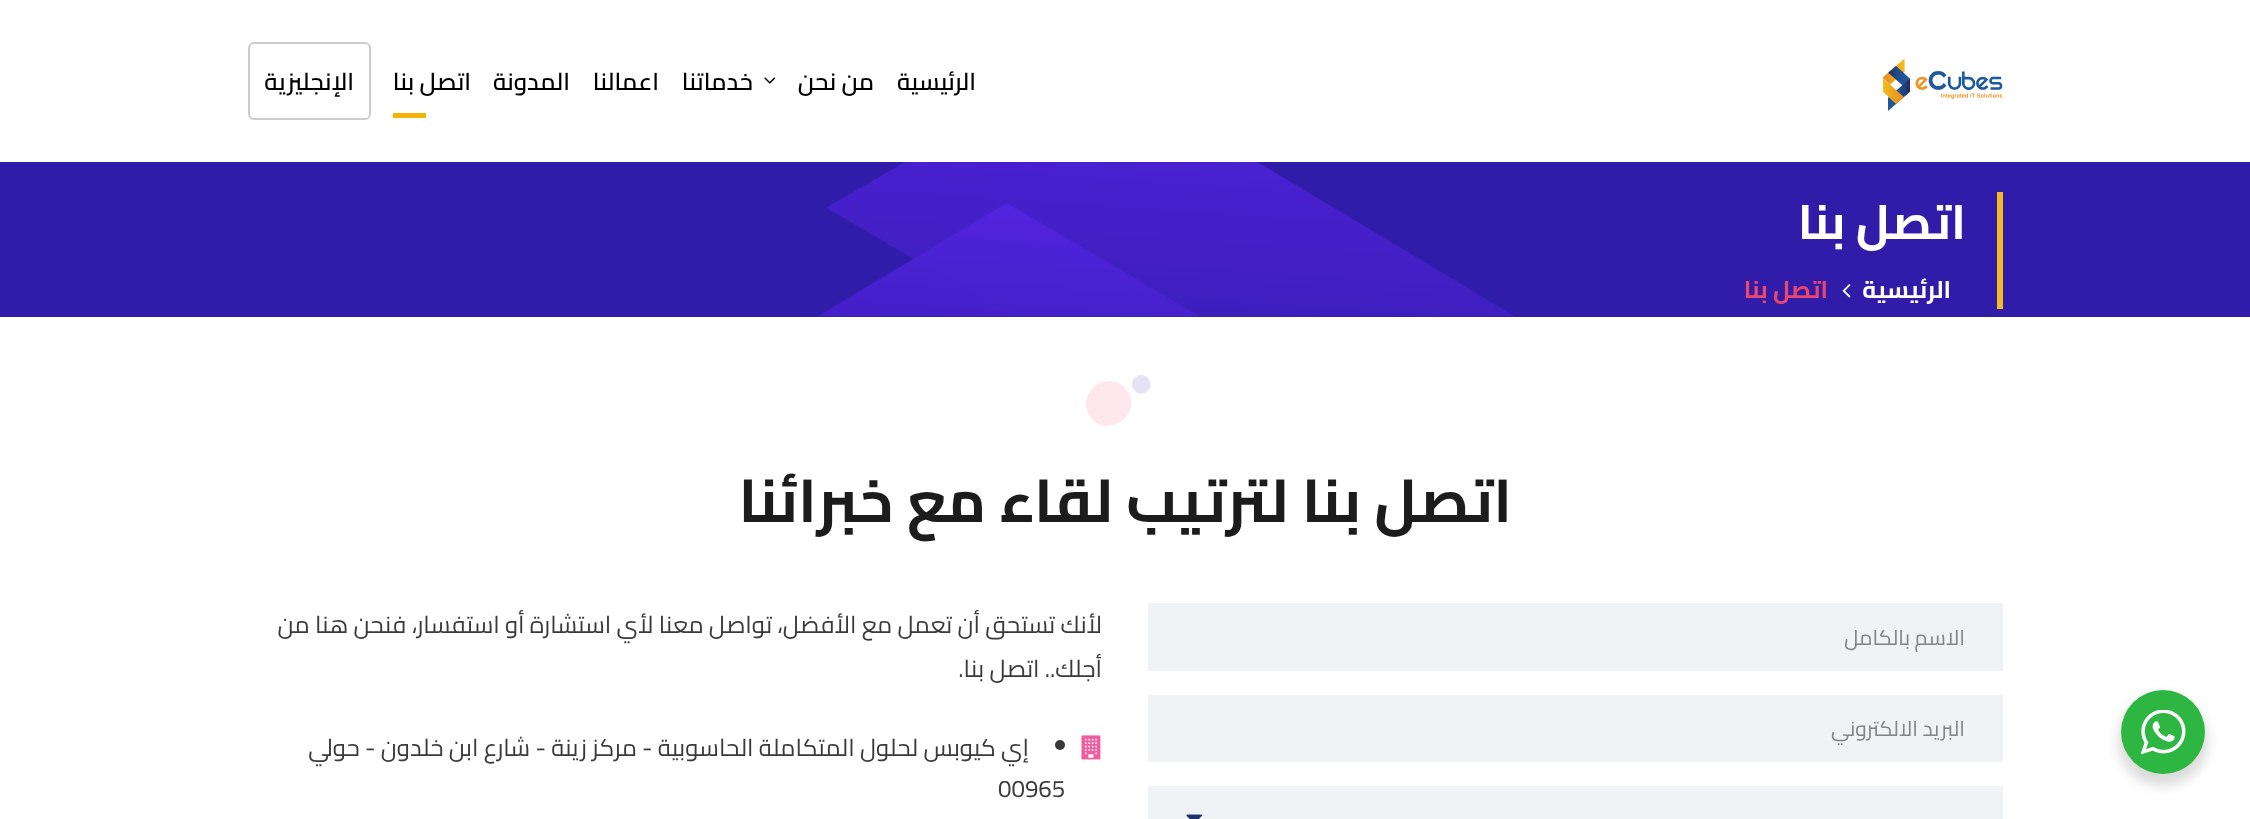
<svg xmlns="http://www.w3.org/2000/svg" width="2250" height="819">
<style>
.a{font:600 24px Cairo;direction:rtl;fill:#000}
.b{font:bold 48px Cairo;direction:rtl;fill:#fff}
.c{font:bold 24px Cairo;direction:rtl;fill:#fff}
.d{font:bold 24px Cairo;direction:rtl;fill:#ed466d}
.e{font:bold 60px Cairo;direction:rtl;fill:#1c1c1c}
.f{font:21px Cairo;direction:rtl;fill:#848484}
.g{font:24px Cairo;direction:rtl;fill:#3a3a3a}
.h{font:24px Cairo;fill:#3a3a3a}
</style>
<rect width="100%" height="100%" fill="#fff"/>
<rect fill="#00000024" filter="blur(6px)" x="2118" y="696" width="90" height="90" rx="45"/>
<circle fill="#2db742" cx="2163" cy="732" r="42"/>
<image href="1.png" x="2141" y="710" width="45" height="45"/>
<image href="2.png" x="1883" y="59" width="120" height="52"/>
<image href="3.png" x="764" y="77" width="12" height="7"/>
<path fill="#f2b302" d="M393 113h33v5H393z"/>
<rect fill="none" stroke="#ccc" stroke-width="2" x="249" y="43" width="121" height="76" rx="5"/>
<path fill="#311caa" d="M0 162h2250v155H0z"/>
<image href="4.png" x="818" y="162" width="697" height="155"/>
<path fill="#f3bb1e" d="M1997 192h6v117H1997z"/>
<image href="5.png" x="1842" y="284" width="9" height="14"/>
<path fill="#f0f3f6" d="M1148 603h855v68H1148z"/>
<path fill="#f0f3f6" d="M1148 695h855v67H1148z"/>
<path fill="#f0f3f6" d="M1148 786h855v33H1148z"/>
<image href="6.png" x="1186" y="814" width="16" height="5"/>
<image href="7.png" x="1081" y="735" width="20" height="25"/>
<circle fill="#3a3a3a" cx="1060" cy="745" r="5"/>
<path fill="#fde8ed" d="M1089 415c-14-26 24-48 39-23c15 25-24 48-39 23z"/>
<path fill="#e5e2f4" d="M1149 379.5c6.5 10.5-9.5 20-15.5 9.5c-6-10.5 9.5-20 15.5-9.5z"/>
<text class="a" x="976" y="90">الرئيسية</text>
<text class="a" x="874" y="90">من نحن</text>
<text class="a" x="753" y="90">خدماتنا</text>
<text class="a" x="659" y="90">اعمالنا</text>
<text class="a" x="570" y="90">المدونة</text>
<text class="a" x="471" y="90">اتصل بنا</text>
<text class="a" x="354" y="90">الإنجليزية</text>
<text class="b" x="1966" y="239">اتصل بنا</text>
<text class="c" x="1951" y="298">الرئيسية</text>
<text class="d" x="1828" y="298">اتصل بنا</text>
<text class="e" x="1512" y="522">اتصل بنا لترتيب لقاء مع خبرائنا</text>
<text class="f" x="1965" y="645">الاسم بالكامل</text>
<text class="f" x="1965" y="736">البريد الالكتروني</text>
<text class="g" x="1102" y="633">لأنك تستحق أن تعمل مع الأفضل، تواصل معنا لأي استشارة أو استفسار، فنحن هنا من</text>
<text class="g" x="1102" y="677">أجلك.. اتصل بنا.</text>
<text class="g" x="1029" y="756">إي كيوبس لحلول المتكاملة الحاسوبية - مركز زينة - شارع ابن خلدون - حولي</text>
<text class="h" x="998" y="797">00965</text>
</svg>
